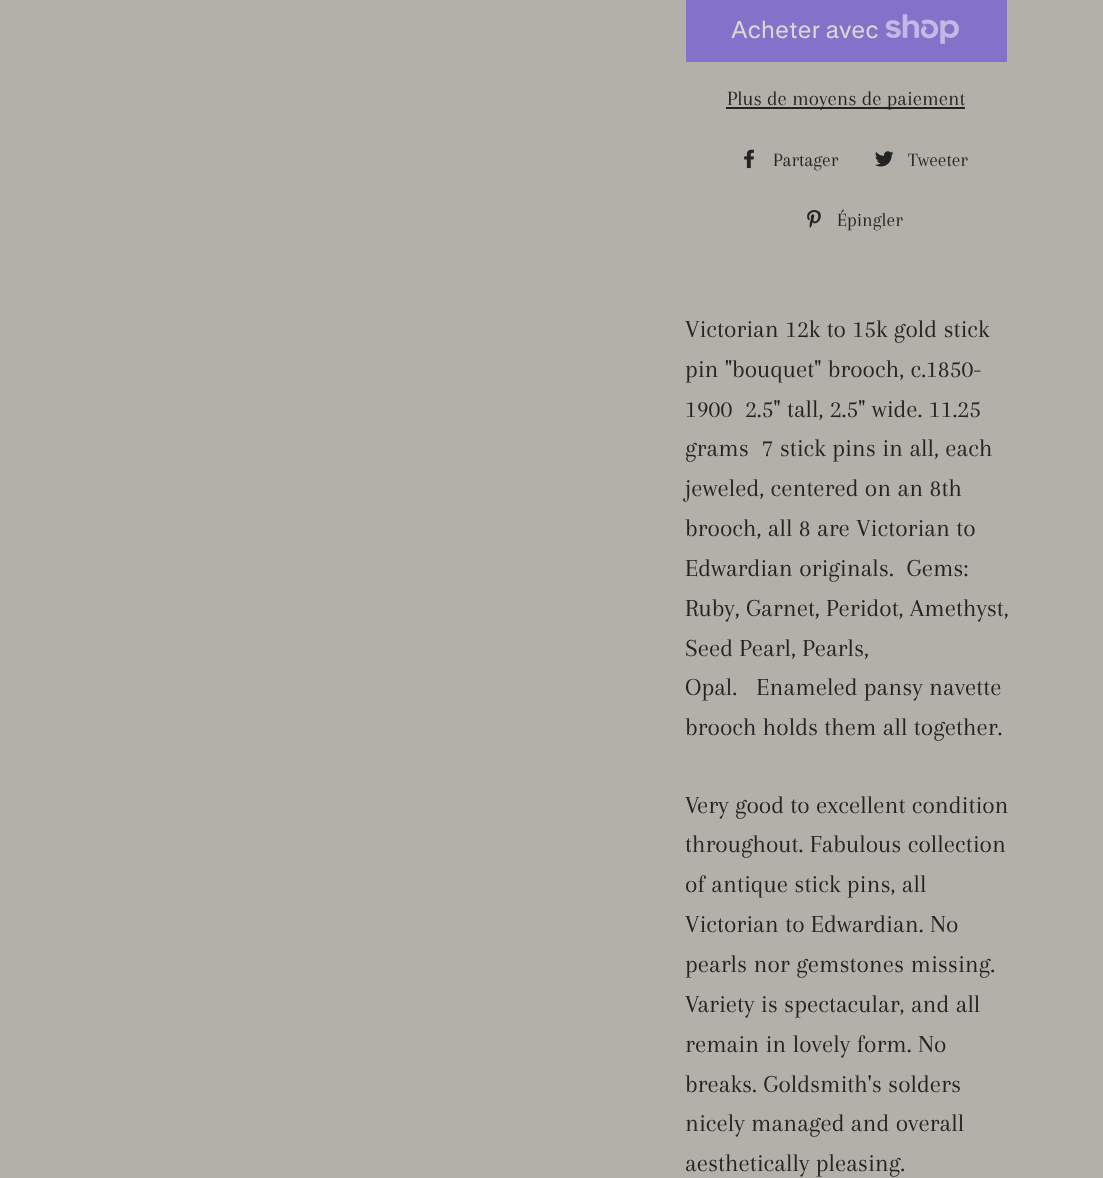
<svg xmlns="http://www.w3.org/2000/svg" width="1103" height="1178">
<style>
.a{font:24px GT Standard;fill:#d9d7d4}
.b{font:21px Arapey;fill:#222323}
.c{font:19.5px Arapey;fill:#222323}
.d{font:25.5px Arapey;fill:#222323}
</style>
<rect width="100%" height="100%" fill="#b3afa9"/>
<path fill="#8471ca" d="M686 0h321v62H686z"/>
<image href="1.png" x="885" y="14" width="74" height="30"/>
<path fill="#222323" d="M726 107h239v2H726z"/>
<image href="2.png" x="744" y="149" width="10" height="20"/>
<image href="3.png" x="875" y="151" width="19" height="16"/>
<image href="4.png" x="807" y="210" width="14" height="18"/>
<text class="a" x="731" y="38">Acheter avec</text>
<text class="b" x="727" y="105">Plus de moyens de paiement</text>
<text class="c" x="773" y="166">Partager</text>
<text class="c" x="908" y="166">Tweeter</text>
<text class="c" x="837" y="226">Épingler</text>
<text class="d" x="685" y="337">Victorian 12k to 15k gold stick</text>
<text class="d" x="685" y="377">pin "bouquet" brooch, c.1850-</text>
<text class="d" xml:space="preserve" x="685" y="417">1900  2.5" tall, 2.5" wide. 11.25</text>
<text class="d" xml:space="preserve" x="685" y="456">grams  7 stick pins in all, each</text>
<text class="d" x="685" y="496">jeweled, centered on an 8th</text>
<text class="d" x="685" y="536">brooch, all 8 are Victorian to</text>
<text class="d" xml:space="preserve" x="685" y="576">Edwardian originals.  Gems:</text>
<text class="d" x="685" y="616">Ruby, Garnet, Peridot, Amethyst,</text>
<text class="d" x="685" y="656">Seed Pearl, Pearls,</text>
<text class="d" xml:space="preserve" x="685" y="695">Opal.   Enameled pansy navette</text>
<text class="d" x="685" y="735">brooch holds them all together.</text>
<text class="d" x="685" y="813">Very good to excellent condition</text>
<text class="d" x="685" y="852">throughout. Fabulous collection</text>
<text class="d" x="685" y="892">of antique stick pins, all</text>
<text class="d" x="685" y="932">Victorian to Edwardian. No</text>
<text class="d" x="685" y="972">pearls nor gemstones missing.</text>
<text class="d" x="685" y="1012">Variety is spectacular, and all</text>
<text class="d" x="685" y="1052">remain in lovely form. No</text>
<text class="d" x="685" y="1092">breaks. Goldsmith's solders</text>
<text class="d" x="685" y="1131">nicely managed and overall</text>
<text class="d" x="685" y="1171">aesthetically pleasing.</text>
</svg>
